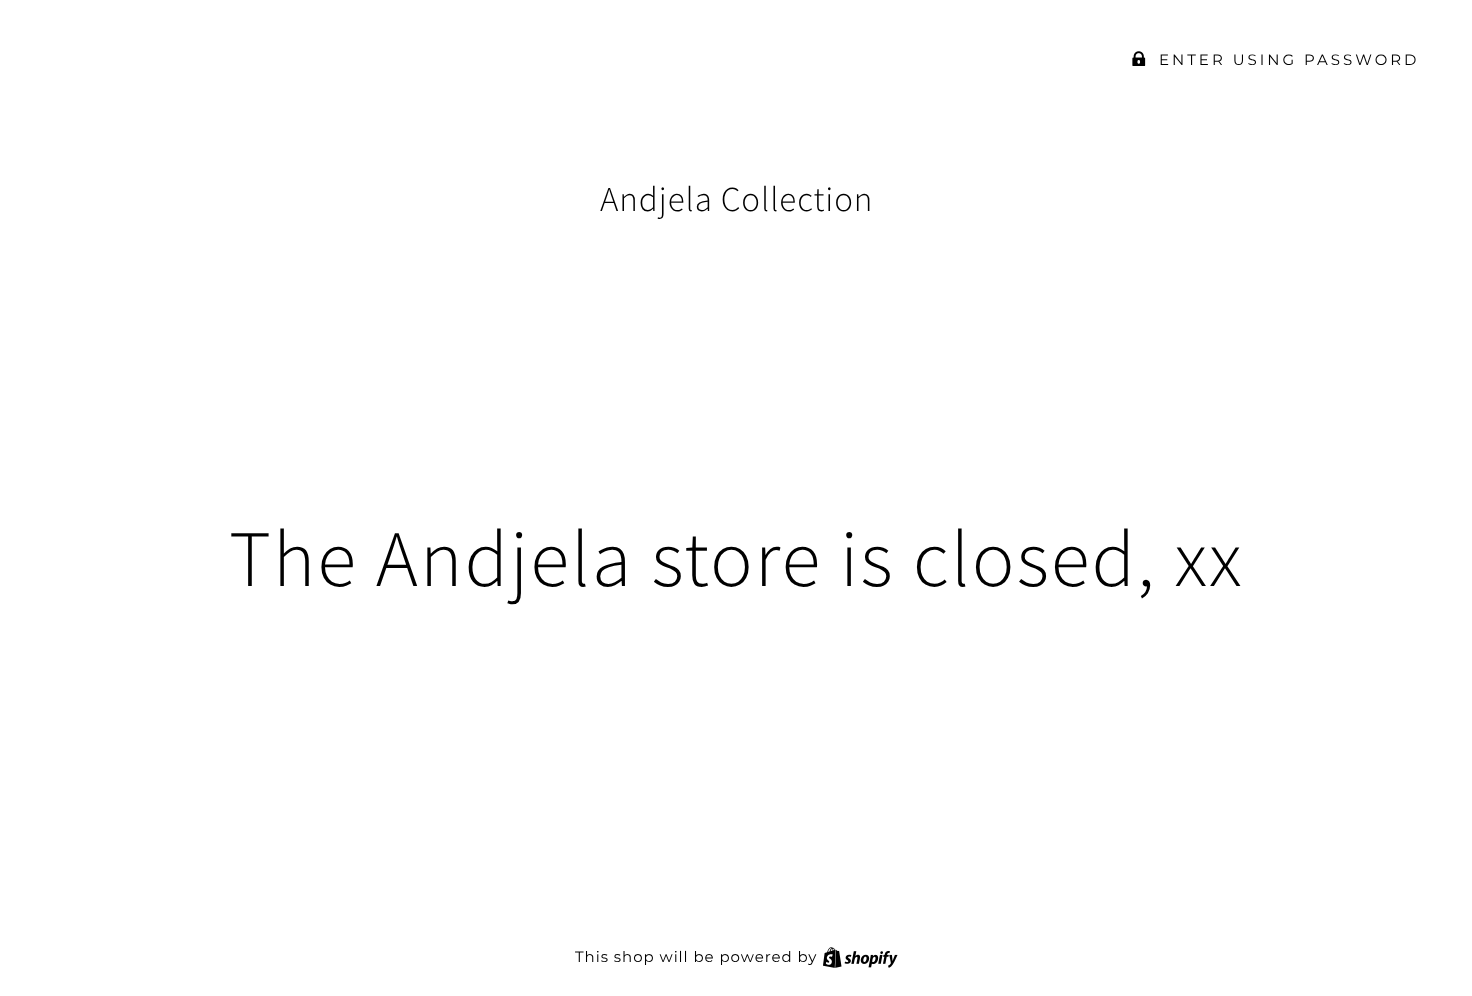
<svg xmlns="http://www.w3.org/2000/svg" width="1472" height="996">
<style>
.a{font:15px Montserrat;letter-spacing:3px;fill:#000}
.b{font:300 35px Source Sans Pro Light;letter-spacing:0.9px;fill:#000}
.c{font:300 80px Source Sans Pro Light;letter-spacing:2px;fill:#000}
.d{font:15px Montserrat;letter-spacing:0.95px;fill:#000}
</style>
<rect width="100%" height="100%" fill="#fff"/>
<image href="1.png" x="1132" y="51" width="14" height="15"/>
<image href="2.png" x="823" y="947" width="75" height="21"/>
<text class="a" x="1159" y="65">ENTER USING PASSWORD</text>
<text class="b" x="600" y="211">Andjela Collection</text>
<text class="c" x="229" y="586">The Andjela store is closed, xx</text>
<text class="d" x="575" y="962">This shop will be powered by</text>
</svg>
